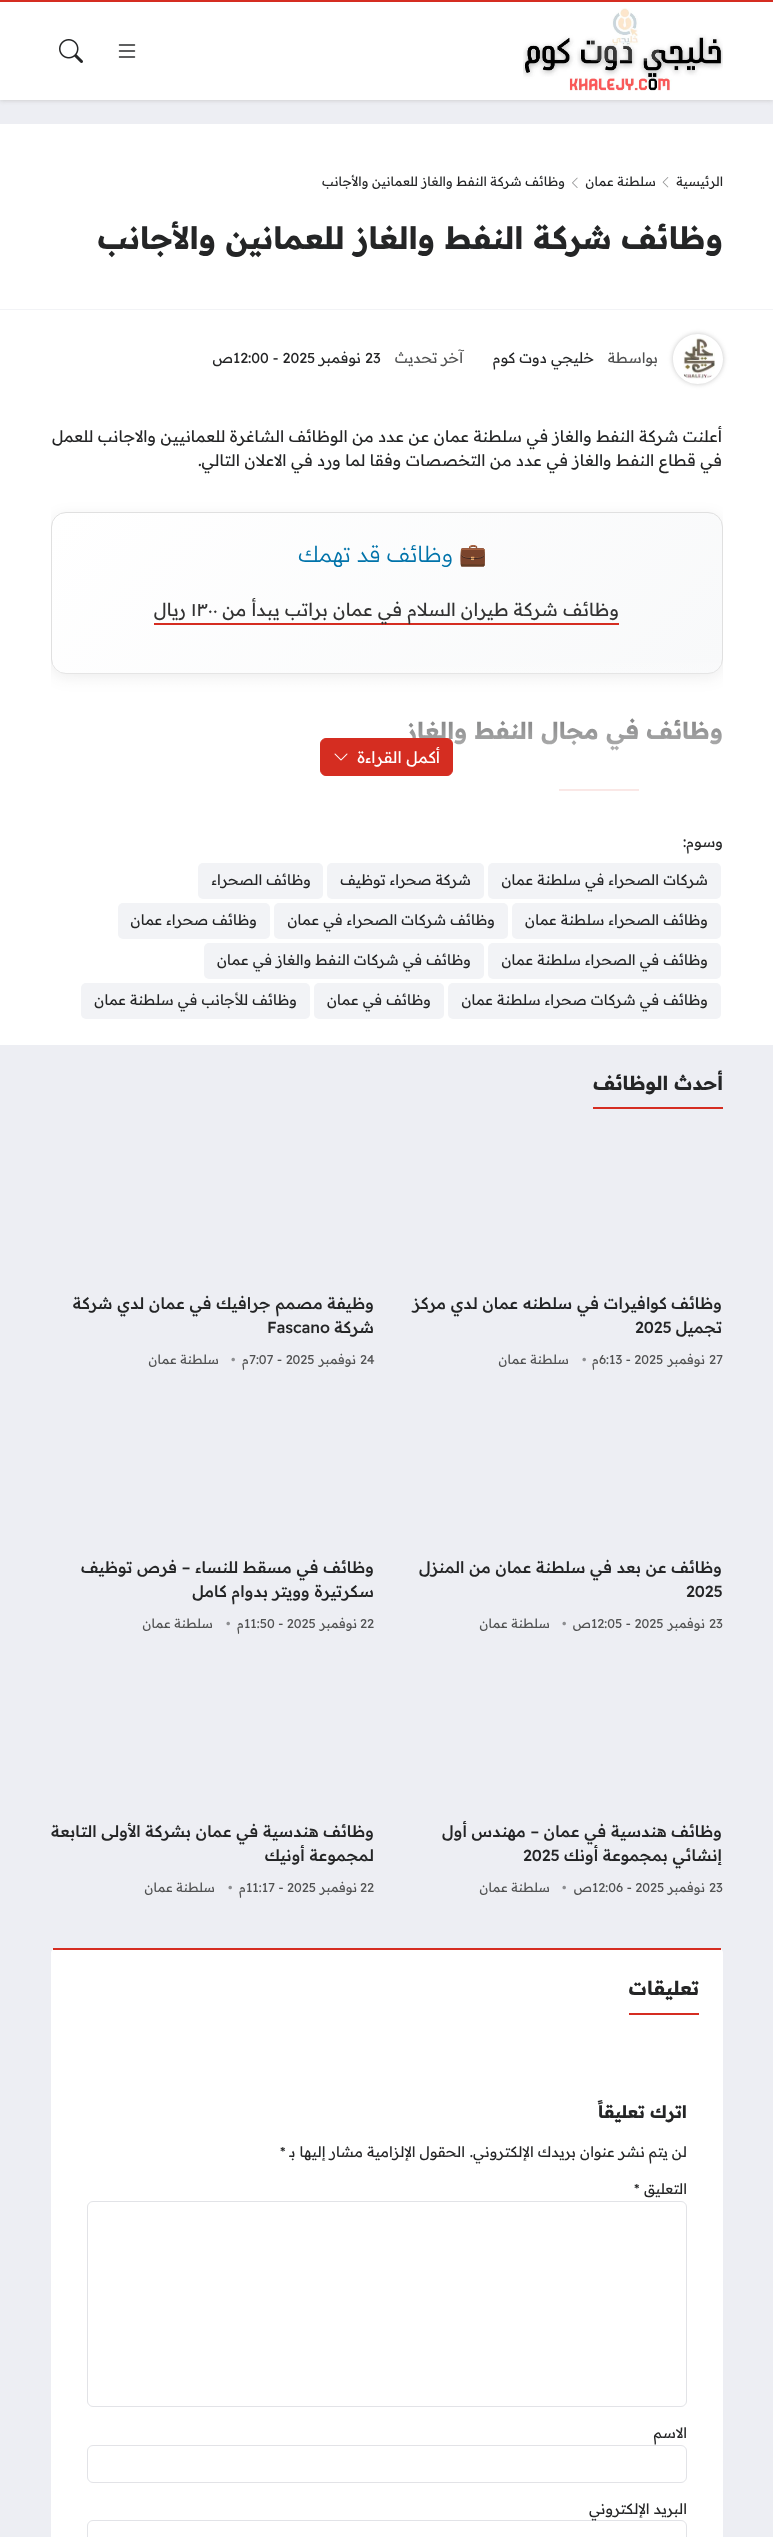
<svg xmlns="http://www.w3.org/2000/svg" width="773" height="2537">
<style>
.a{font:12.75px Readex Pro;direction:rtl;fill:#242526}
.b{font:bold 30.9px Readex Pro;direction:rtl;fill:#242526}
.c{font:14.4px Readex Pro;direction:rtl;fill:#505151}
.d{font:14.4px Readex Pro;direction:rtl;fill:#242526}
.e{font:14.4px Readex Pro;fill:#242526}
.f{font:16px Readex Pro;direction:rtl;fill:#242526}
.g{font:bold 22px Noto Color Emoji;letter-spacing:1px;direction:rtl;fill:#0073aa}
.h{font:300 22px Readex Pro;letter-spacing:1px;direction:rtl;fill:#0073aa}
.i{font:18px Readex Pro;direction:rtl;fill:#333}
.j{font:18px Readex Pro;fill:#333}
.k{font:bold 23.25px Readex Pro;direction:rtl;fill:#242526}
.l{font:16px Readex Pro;direction:rtl;fill:#fff}
.m{font:bold 19.25px Readex Pro;direction:rtl;fill:#242526}
.n{font:500 16px Readex Pro;direction:rtl;fill:#242526}
.o{font:500 16px Readex Pro;fill:#242526}
.p{font:12.75px Readex Pro;fill:#505151}
.q{font:12.75px Readex Pro;direction:rtl;fill:#505151}
.r{font:12.75px Readex Pro;fill:#8d8e91}
.s{font:bold 17.25px Readex Pro;direction:rtl;fill:#242526}
</style>
<defs>
<clipPath id="clip1"><path d="M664 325h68v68h-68zm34 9c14 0 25 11 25 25c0 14-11 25-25 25c-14 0-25-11-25-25c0-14 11-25 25-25z" clip-rule="evenodd"/></clipPath>
<clipPath id="clip2"><path d="M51 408h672v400H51z"/></clipPath>
<clipPath id="clip3"><rect x="51" y="512" width="672" height="162" rx="15"/></clipPath>
<linearGradient id="g1" gradientUnits="userSpaceOnUse" x1="180" y1="386" x2="595" y2="801"><stop offset="0" stop-color="#fff"/><stop offset="1" stop-color="#f8f9fa"/></linearGradient>
<linearGradient id="g2" gradientUnits="userSpaceOnUse" x1="387" y1="578" x2="387" y2="808"><stop offset="0" stop-color="#000" stop-opacity="0"/><stop offset="0.3" stop-color="#fff" stop-opacity="0"/><stop offset="1" stop-color="#fff"/></linearGradient>
</defs>
<rect width="100%" height="100%" fill="#edeef3"/>
<path fill="#c3c3c3" filter="blur(2.5px)" d="M0 0h773v100H0z"/>
<path fill="#d52d21" d="M0 0h773v2H0z"/>
<path fill="#fff" d="M0 2h773v98H0z"/>
<image href="1.png" x="523" y="8" width="200" height="83"/>
<image href="2.png" x="118" y="44" width="18" height="14"/>
<image href="3.png" x="59" y="39" width="24" height="24"/>
<path fill="#fff" d="M0 124h773v921H0z"/>
<path fill="#f2f3f6" d="M0 309h773v1H0z"/>
<image href="4.png" x="662" y="177" width="7" height="11"/>
<image href="5.png" x="572" y="177" width="6" height="11"/>
<g clip-path="url(#clip1)">
<rect fill="#c3c3c3" filter="blur(2.5px)" x="673" y="334" width="50" height="50" rx="25"/>
</g>
<image href="6.png" x="683" y="337" width="32" height="42"/>
<g clip-path="url(#clip2)">
<rect fill="#00000014" filter="blur(7.5px)" x="51" y="516" width="672" height="162" rx="15"/>
</g>
<g clip-path="url(#clip3)">
<path fill="url(#g1)" d="M52 513h670v160H52z"/>
</g>
<rect fill="none" stroke="#e0e0e0" x="51.5" y="512.5" width="671" height="161" rx="14.5"/>
<path fill="#d52d21" d="M154 623h465v2H154z"/>
<path fill="#d52d21" d="M559 789h80v2H559z"/>
<rect fill="#f2f3f6" x="488" y="863" width="233" height="36" rx="5"/>
<rect fill="#f2f3f6" x="327" y="863" width="157" height="36" rx="5"/>
<rect fill="#f2f3f6" x="198" y="863" width="125" height="36" rx="5"/>
<rect fill="#f2f3f6" x="512" y="903" width="209" height="36" rx="5"/>
<rect fill="#f2f3f6" x="274" y="903" width="234" height="36" rx="5"/>
<rect fill="#f2f3f6" x="118" y="903" width="152" height="36" rx="5"/>
<rect fill="#f2f3f6" x="488" y="943" width="233" height="36" rx="5"/>
<rect fill="#f2f3f6" x="204" y="943" width="280" height="36" rx="5"/>
<rect fill="#f2f3f6" x="448" y="983" width="273" height="36" rx="5"/>
<rect fill="#f2f3f6" x="314" y="983" width="130" height="36" rx="5"/>
<rect fill="#f2f3f6" x="81" y="983" width="229" height="36" rx="5"/>
<path fill="#d52d21" d="M593 1107h130v2H593z"/>
<rect fill="#fff" x="51" y="1948" width="672" height="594" rx="5"/>
<path fill="#d52d21" d="M53 1948h668v2H53z"/>
<path fill="#d52d21" d="M629 2013h70v2H629z"/>
<rect fill="none" stroke="#e2e3e7" x="87.5" y="2201.5" width="599" height="205" rx="5.5"/>
<rect fill="none" stroke="#e2e3e7" x="87.5" y="2445.5" width="599" height="37" rx="5.5"/>
<rect fill="none" stroke="#e2e3e7" x="87.5" y="2520.5" width="599" height="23" rx="5.5"/>
<text class="a" x="723" y="186">الرئيسية</text>
<text class="a" x="656" y="186">سلطنة عمان</text>
<text class="a" x="565" y="186">وظائف شركة النفط والغاز للعمانين والأجانب</text>
<text class="b" x="723" y="249">وظائف شركة النفط والغاز للعمانين والأجانب</text>
<text class="c" x="658" y="363">بواسطة</text>
<text class="d" x="594" y="363">خليجي دوت كوم</text>
<text class="c" x="463" y="363">آخر تحديث</text>
<text class="e" x="365" y="363">23</text>
<text class="d" x="361" y="363">نوفمبر</text>
<text class="e" x="233" y="363">12:00 - 2025</text>
<text class="d" x="233" y="363">ص</text>
<text class="f" x="722" y="442">أعلنت شركة النفط والغاز في سلطنة عمان عن عدد من الوظائف الشاغرة للعمانيين والاجانب للعمل</text>
<text class="f" x="722" y="466">في قطاع النفط والغاز في عدد من التخصصات وفقا لما ورد في الاعلان التالي.</text>
<text class="g" x="488" y="562">💼</text>
<text class="h" x="453" y="562">وظائف قد تهمك</text>
<text class="i" x="619" y="616">وظائف شركة طيران السلام في عمان براتب يبدأ من</text>
<text class="j" x="191" y="616">١٣٠٠</text>
<text class="i" x="186" y="616">ريال</text>
<text class="k" x="723" y="739">وظائف في مجال النفط والغاز</text>
<path fill="url(#g2)" d="M52 663h670v128H52z"/>
<rect fill="#d52d21" stroke="#d52d21" x="320.5" y="738.5" width="132" height="37" rx="5.5"/>
<text class="l" x="440" y="763">أكمل القراءة</text>
<image href="7.png" x="334" y="753" width="14" height="8"/>
<text class="d" x="723" y="847">وسوم:</text>
<text class="d" x="708" y="885">شركات الصحراء في سلطنة عمان</text>
<text class="d" x="471" y="885">شركة صحراء توظيف</text>
<text class="d" x="311" y="885">وظائف الصحراء</text>
<text class="d" x="708" y="925">وظائف الصحراء سلطنة عمان</text>
<text class="d" x="495" y="925">وظائف شركات الصحراء في عمان</text>
<text class="d" x="257" y="925">وظائف صحراء عمان</text>
<text class="d" x="708" y="965">وظائف في الصحراء سلطنة عمان</text>
<text class="d" x="471" y="965">وظائف في شركات النفط والغاز في عمان</text>
<text class="d" x="708" y="1005">وظائف في شركات صحراء سلطنة عمان</text>
<text class="d" x="431" y="1005">وظائف في عمان</text>
<text class="d" x="297" y="1005">وظائف للأجانب في سلطنة عمان</text>
<text class="m" x="723" y="1090">أحدث الوظائف</text>
<text class="n" x="722" y="1309">وظائف كوافيرات في سلطنه عمان لدي مركز</text>
<text class="n" x="722" y="1333">تجميل</text>
<text class="o" x="635" y="1333">2025</text>
<text class="p" x="709" y="1364">27</text>
<text class="q" x="705" y="1364">نوفمبر</text>
<text class="p" x="599" y="1364">6:13 - 2025</text>
<text class="q" x="599" y="1364">م</text>
<text class="r" x="582" y="1364">•</text>
<text class="q" x="569" y="1364">سلطنة عمان</text>
<text class="n" x="374" y="1309">وظيفة مصمم جرافيك في عمان لدي شركة</text>
<text class="n" x="374" y="1333">شركة</text>
<text class="o" x="267" y="1333">Fascano</text>
<text class="p" x="360" y="1364">24</text>
<text class="q" x="356" y="1364">نوفمبر</text>
<text class="p" x="249" y="1364">7:07 - 2025</text>
<text class="q" x="249" y="1364">م</text>
<text class="r" x="231" y="1364">•</text>
<text class="q" x="219" y="1364">سلطنة عمان</text>
<text class="n" x="722" y="1573">وظائف عن بعد في سلطنة عمان من المنزل</text>
<text class="o" x="686" y="1597">2025</text>
<text class="p" x="709" y="1628">23</text>
<text class="q" x="705" y="1628">نوفمبر</text>
<text class="p" x="591" y="1628">12:05 - 2025</text>
<text class="q" x="591" y="1628">ص</text>
<text class="r" x="562" y="1628">•</text>
<text class="q" x="550" y="1628">سلطنة عمان</text>
<text class="n" x="374" y="1573">وظائف في مسقط للنساء – فرص توظيف</text>
<text class="n" x="374" y="1597">سكرتيرة وويتر بدوام كامل</text>
<text class="p" x="360" y="1628">22</text>
<text class="q" x="357" y="1628">نوفمبر</text>
<text class="p" x="244" y="1628">11:50 - 2025</text>
<text class="q" x="244" y="1628">م</text>
<text class="r" x="226" y="1628">•</text>
<text class="q" x="213" y="1628">سلطنة عمان</text>
<text class="n" x="722" y="1837">وظائف هندسية في عمان – مهندس أول</text>
<text class="n" x="722" y="1861">إنشائي بمجموعة أونك</text>
<text class="o" x="523" y="1861">2025</text>
<text class="p" x="709" y="1892">23</text>
<text class="q" x="705" y="1892">نوفمبر</text>
<text class="p" x="592" y="1892">12:06 - 2025</text>
<text class="q" x="592" y="1892">ص</text>
<text class="r" x="562" y="1892">•</text>
<text class="q" x="550" y="1892">سلطنة عمان</text>
<text class="n" x="374" y="1837">وظائف هندسية في عمان بشركة الأولى التابعة</text>
<text class="n" x="374" y="1861">لمجموعة أونيك</text>
<text class="p" x="360" y="1892">22</text>
<text class="q" x="357" y="1892">نوفمبر</text>
<text class="p" x="246" y="1892">11:17 - 2025</text>
<text class="q" x="246" y="1892">م</text>
<text class="r" x="228" y="1892">•</text>
<text class="q" x="215" y="1892">سلطنة عمان</text>
<text class="m" x="699" y="1995">تعليقات</text>
<text class="s" x="687" y="2118">اترك تعليقاً</text>
<text class="d" x="687" y="2157">لن يتم نشر عنوان بريدك الإلكتروني.</text>
<text class="d" x="465" y="2157">الحقول الإلزامية مشار إليها بـ</text>
<text class="e" x="280" y="2157">*</text>
<text class="d" x="687" y="2194">التعليق</text>
<text class="e" x="634" y="2194">*</text>
<text class="d" x="687" y="2438">الاسم</text>
<text class="d" x="687" y="2514">البريد الإلكتروني</text>
</svg>
